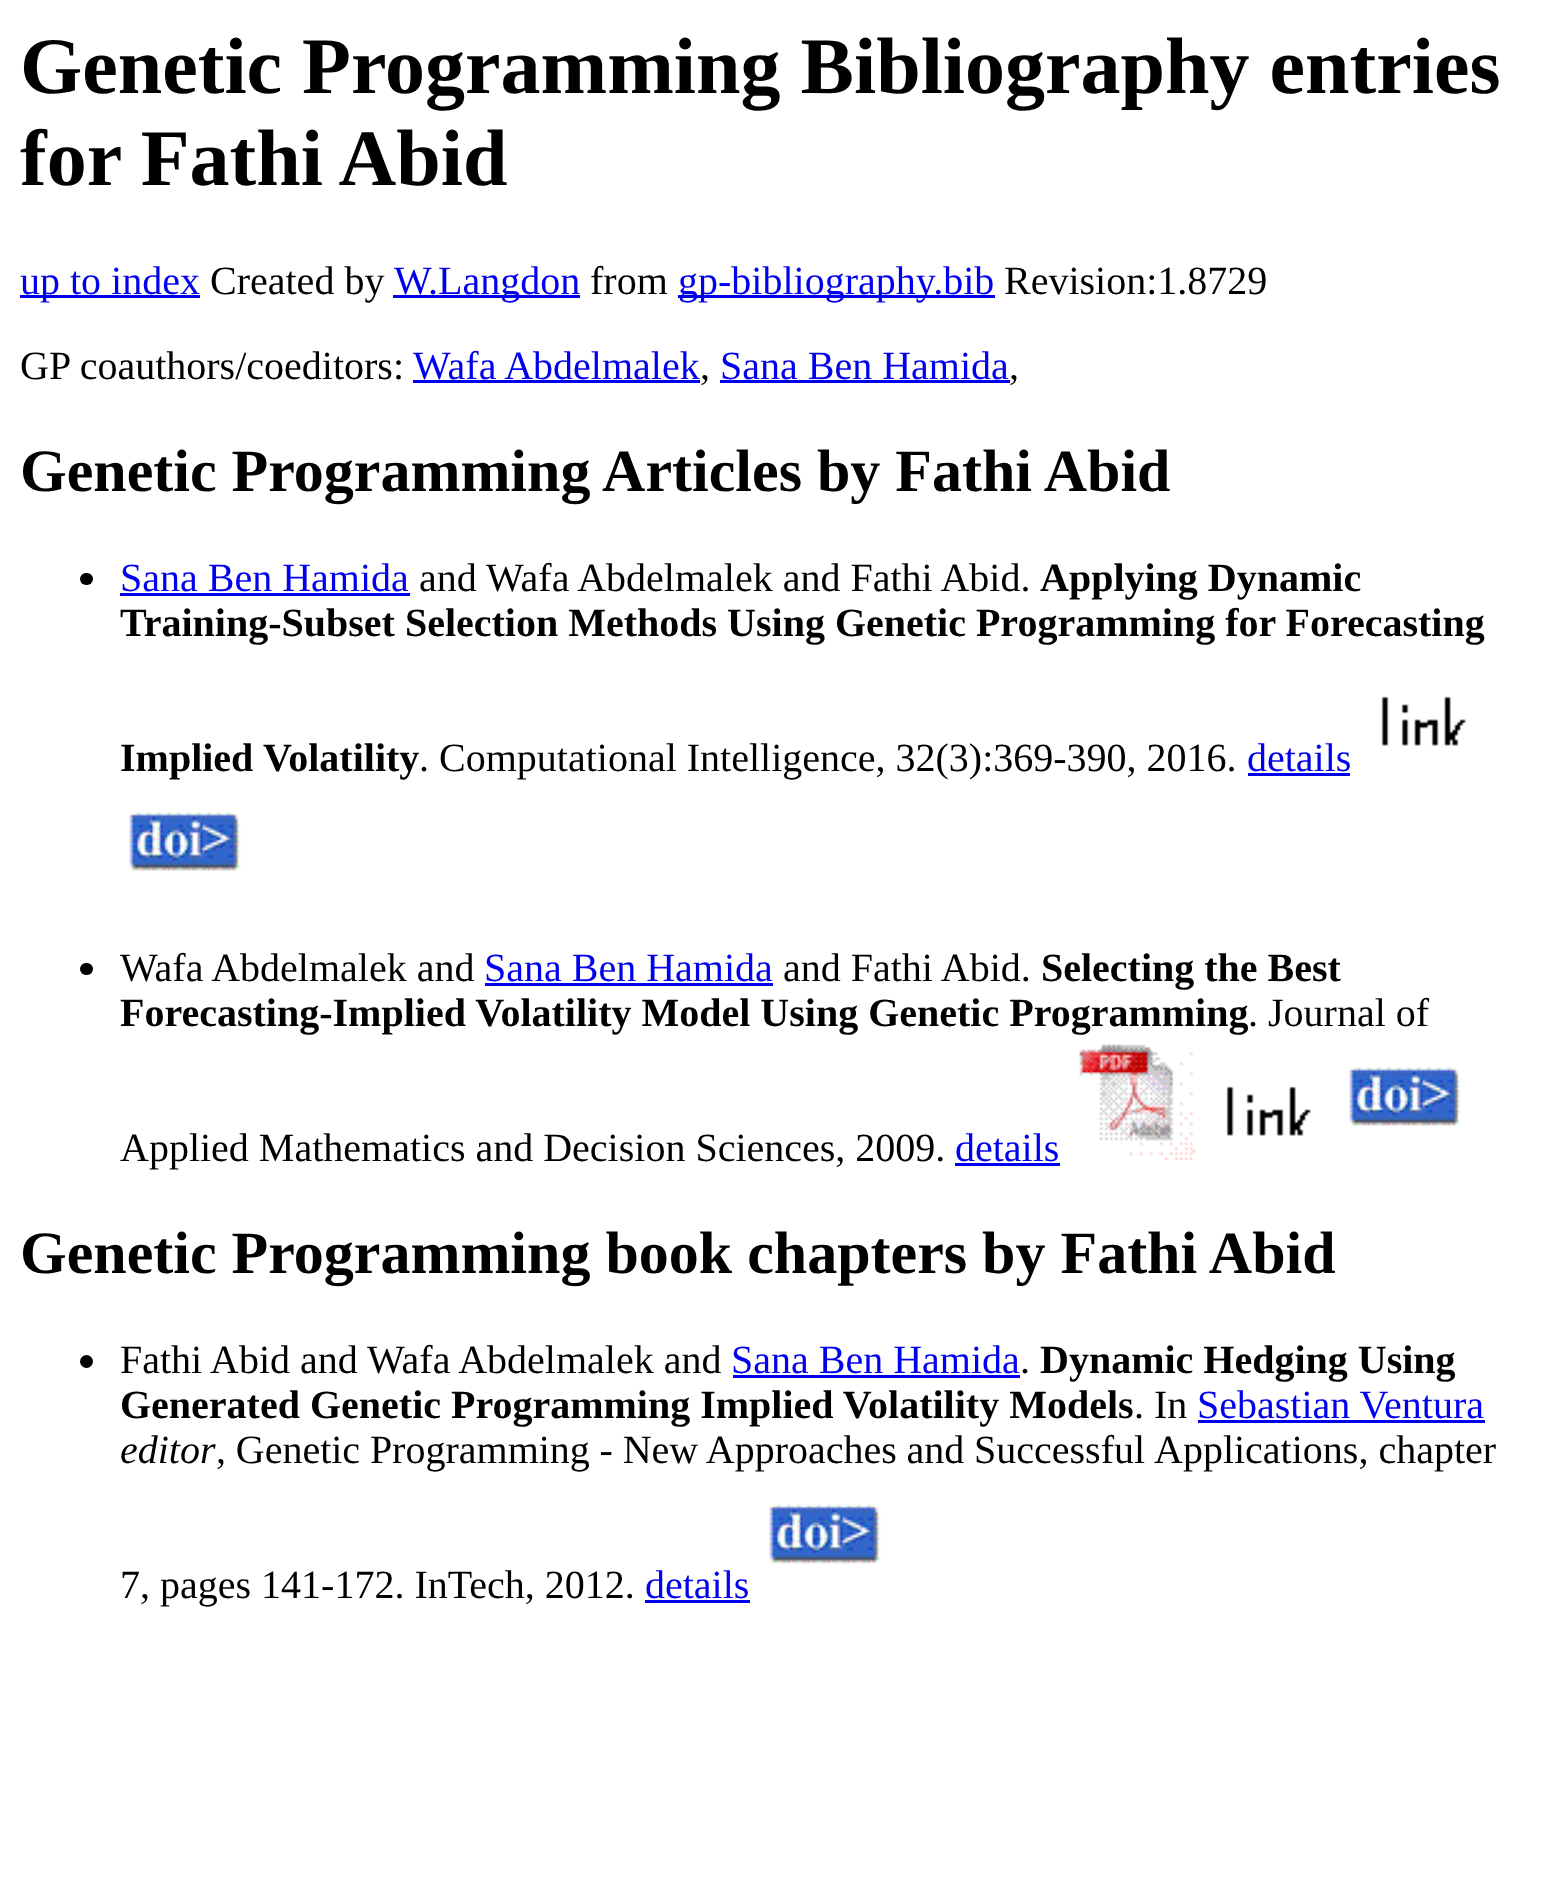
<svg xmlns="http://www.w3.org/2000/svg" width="1550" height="1884">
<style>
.a{font:bold 80px Liberation Serif;fill:#000}
.b{font:40px Liberation Serif;fill:#00e}
.c{font:40px Liberation Serif;fill:#000}
.d{font:bold 60px Liberation Serif;fill:#000}
.e{font:bold 40px Liberation Serif;fill:#000}
.f{font:italic 40px Liberation Serif;fill:#000}
</style>
<rect width="100%" height="100%" fill="#fff"/>
<path fill="#00e" d="M20 295h180v3H20z"/>
<path fill="#00e" d="M393 295h187v3H393z"/>
<path fill="#00e" d="M678 295h317v3H678z"/>
<path fill="#00e" d="M413 380h287v3H413z"/>
<path fill="#00e" d="M720 380h290v3H720z"/>
<rect fill="#000" x="80" y="573" width="13" height="12" rx="6"/>
<path fill="#00e" d="M120 593h290v3H120z"/>
<image href="1.png" x="1381" y="696" width="85" height="50"/>
<path fill="#00e" d="M1248 773h102v3H1248z"/>
<image href="2.png" x="129" y="812" width="112" height="59"/>
<rect fill="#000" x="80" y="963" width="13" height="12" rx="6"/>
<path fill="#00e" d="M485 983h288v3H485z"/>
<image href="3.png" x="1079" y="1044" width="116" height="116"/>
<image href="1.png" x="1226" y="1086" width="85" height="50"/>
<image href="2.png" x="1349" y="1067" width="112" height="59"/>
<path fill="#00e" d="M955 1163h105v3H955z"/>
<circle fill="#000" cx="86.5" cy="1361.5" r="6.5"/>
<path fill="#00e" d="M733 1375h287v3H733z"/>
<path fill="#00e" d="M1198 1420h287v3H1198z"/>
<image href="4.png" x="769" y="1504" width="112" height="60"/>
<path fill="#00e" d="M645 1600h105v3H645z"/>
<text class="a" x="20" y="93">Genetic Programming Bibliography entries</text>
<text class="a" x="20" y="185">for Fathi Abid</text>
<text class="b" x="20" y="294">up to index</text>
<text class="c" x="210" y="294">Created by</text>
<text class="b" x="394" y="294">W.Langdon</text>
<text class="c" x="590" y="294">from</text>
<text class="b" x="678" y="294">gp-bibliography.bib</text>
<text class="c" x="1004" y="294">Revision:1.8729</text>
<text class="c" x="20" y="379">GP coauthors/coeditors:</text>
<text class="b" x="413" y="379">Wafa Abdelmalek</text>
<text class="c" x="700" y="379">,</text>
<text class="b" x="720" y="379">Sana Ben Hamida</text>
<text class="c" x="1009" y="379">,</text>
<text class="d" x="20" y="491">Genetic Programming Articles by Fathi Abid</text>
<text class="b" x="120" y="591">Sana Ben Hamida</text>
<text class="c" x="419" y="591">and</text>
<text class="c" x="486" y="591">Wafa Abdelmalek and Fathi Abid.</text>
<text class="e" x="1040" y="591">Applying Dynamic</text>
<text class="e" x="120" y="636">Training-Subset Selection Methods Using Genetic Programming for Forecasting</text>
<text class="e" x="120" y="771">Implied</text>
<text class="e" x="263" y="771">Volatility</text>
<text class="c" x="419" y="771">. Computational Intelligence, 32(3):369-390, 2016.</text>
<text class="b" x="1247" y="771">details</text>
<text class="c" x="120" y="981">Wafa Abdelmalek and</text>
<text class="b" x="484" y="981">Sana Ben Hamida</text>
<text class="c" x="783" y="981">and Fathi Abid.</text>
<text class="e" x="1041" y="981">Selecting the Best</text>
<text class="e" x="120" y="1026">Forecasting-Implied Volatility Model Using Genetic Programming</text>
<text class="c" x="1248" y="1026">. Journal of</text>
<text class="c" x="120" y="1161">Applied Mathematics and Decision Sciences, 2009.</text>
<text class="b" x="955" y="1161">details</text>
<text class="d" x="20" y="1273">Genetic Programming book chapters by Fathi Abid</text>
<text class="c" x="120" y="1373">Fathi Abid and</text>
<text class="c" x="367" y="1373">Wafa Abdelmalek and</text>
<text class="b" x="731" y="1373">Sana Ben Hamida</text>
<text class="e" x="1040" y="1373">Dynamic Hedging Using</text>
<text class="c" x="1020" y="1373">.</text>
<text class="e" x="120" y="1418">Generated Genetic Programming Implied Volatility Models</text>
<text class="c" x="1134" y="1418">. In</text>
<text class="b" x="1197" y="1418">Sebastian Ventura</text>
<text class="f" x="120" y="1463">editor</text>
<text class="c" x="216" y="1463" word-spacing="-0.25">, Genetic Programming - New Approaches and Successful</text>
<text class="c" x="1154" y="1463">Applications, chapter</text>
<text class="c" x="120" y="1598">7, pages 141-172. InTech, 2012.</text>
<text class="b" x="645" y="1598">details</text>
</svg>
